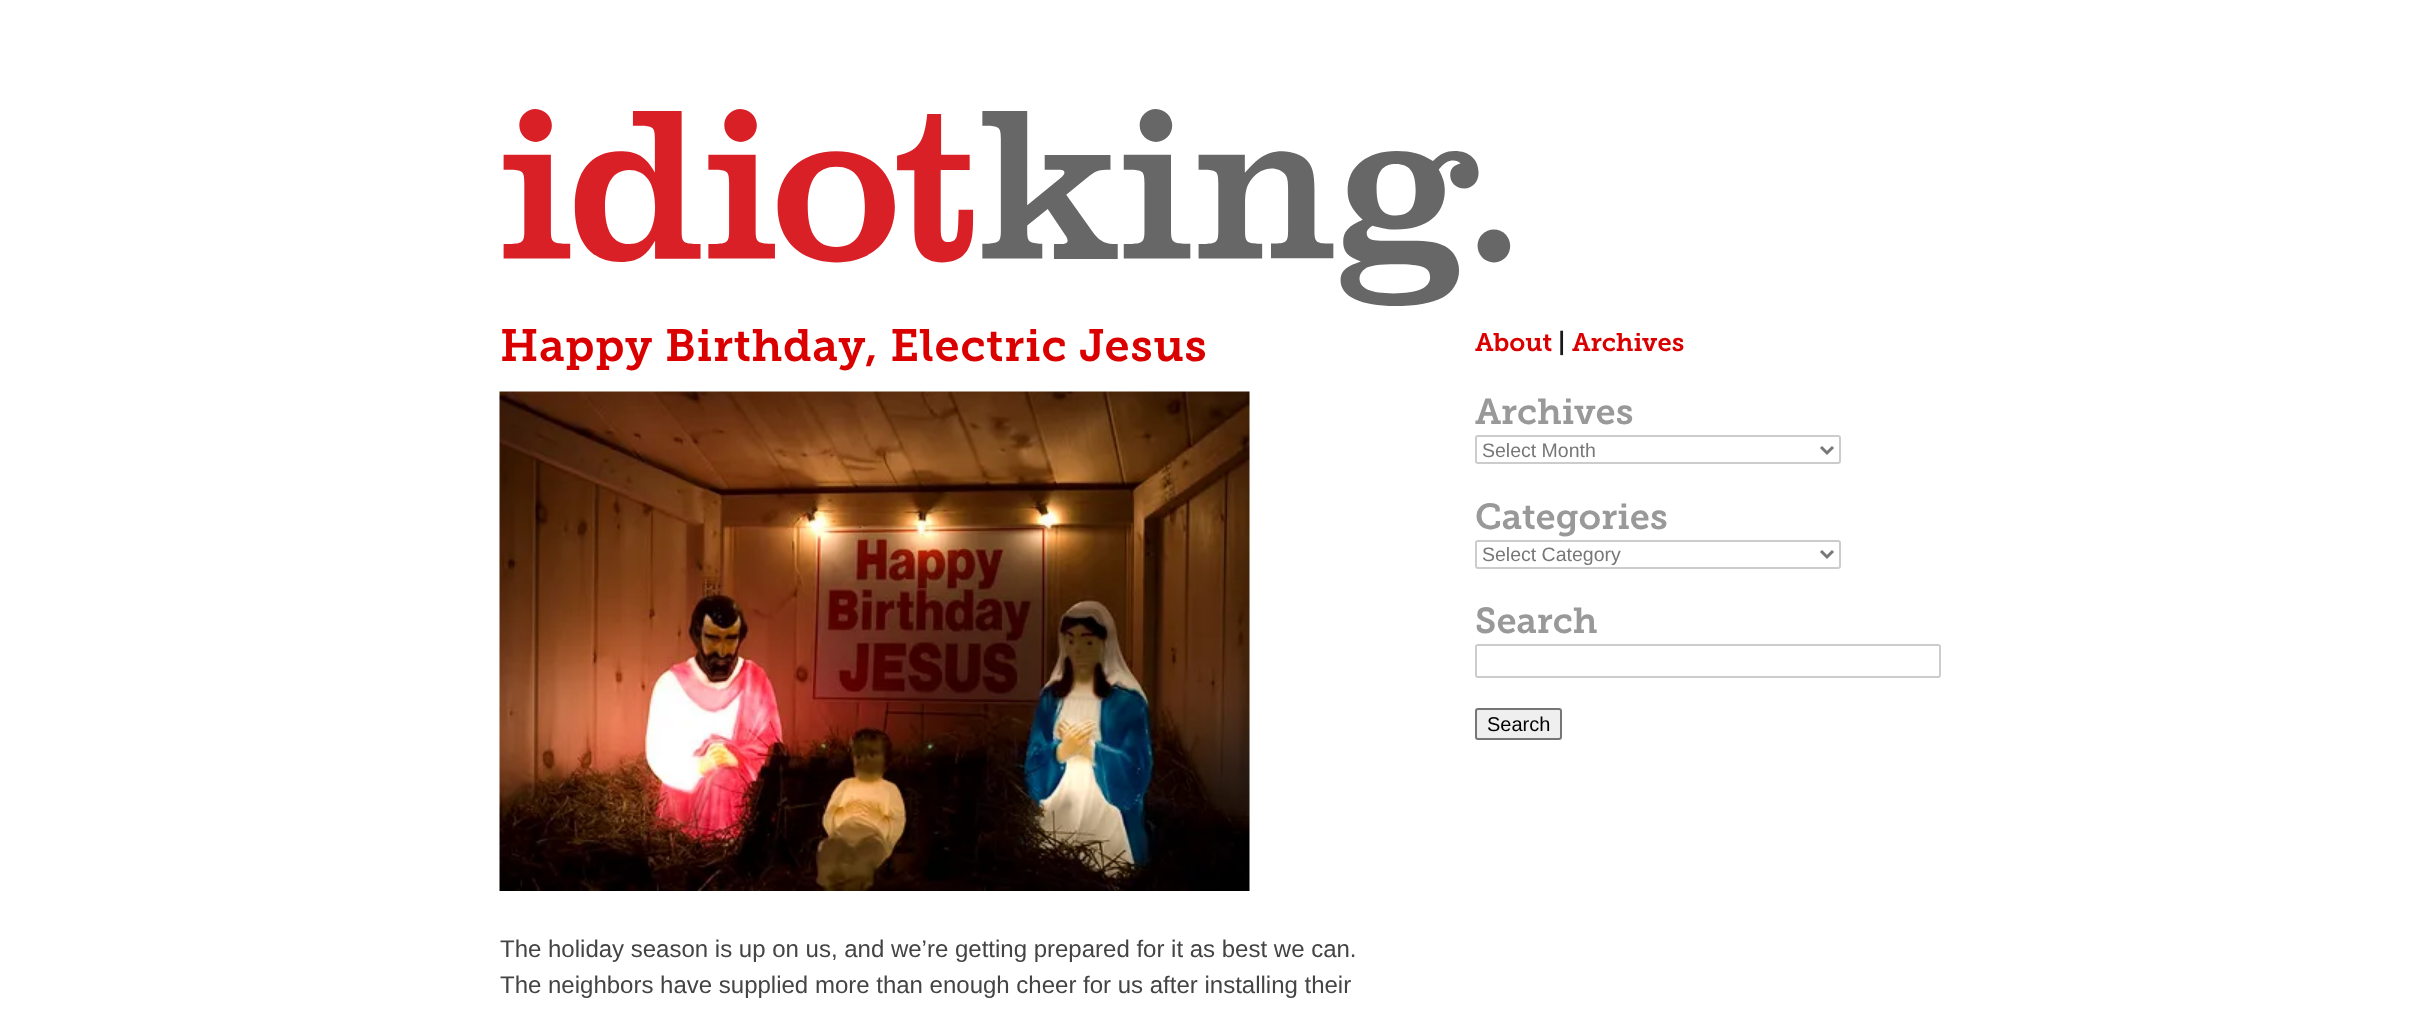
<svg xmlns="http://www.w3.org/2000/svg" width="2409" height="1014">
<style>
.a{font:600 45px 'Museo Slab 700';letter-spacing:0.75px;fill:#db0000}
.b{font:24px Liberation Sans;fill:#444}
.c{font:600 25.5px 'Museo Slab 700';fill:#db0000}
.d{font:600 25.5px 'Museo Slab 700';fill:#181818}
.e{font:600 36px 'Museo Slab 700';fill:#999}
.f{font:19.5px Liberation Sans;fill:#777}
.g{font:20px Liberation Sans;fill:#000}
</style>
<rect width="100%" height="100%" fill="#fff"/>
<image href="1.png" x="503" y="109" width="1008" height="197"/>
<image href="2.png" x="499" y="391" width="751" height="500"/>
<rect fill="none" stroke="#ccc" stroke-width="2" x="1476" y="436" width="364" height="27" rx="2"/>
<path fill="none" stroke="#777" stroke-width="3" d="M1821 447l6 6l6-6"/>
<rect fill="none" stroke="#ccc" stroke-width="2" x="1476" y="541" width="364" height="27" rx="2"/>
<path fill="none" stroke="#777" stroke-width="3" d="M1821 551l6 6l6-6"/>
<rect fill="none" stroke="#ccc" stroke-width="2" x="1476" y="645" width="464" height="32" rx="2"/>
<rect fill="#efefef" stroke="#767676" stroke-width="2" x="1476" y="709" width="85" height="30" rx="2"/>
<text class="a" x="500" y="361">Happy Birthday, Electric Jesus</text>
<text class="b" x="500" y="957">The holiday season is up on us, and we’re getting prepared for it as best we can.</text>
<text class="b" x="500" y="993">The neighbors have supplied more than enough cheer for us after installing their</text>
<text class="c" x="1475" y="351">About</text>
<text class="d" x="1558" y="351">|</text>
<text class="c" x="1572" y="351">Archives</text>
<text class="e" x="1475" y="424">Archives</text>
<text class="f" x="1482" y="457">Select Month</text>
<text class="e" x="1475" y="529">Categories</text>
<text class="f" x="1482" y="561">Select Category</text>
<text class="e" x="1475" y="633">Search</text>
<text class="g" x="1487" y="731">Search</text>
</svg>
